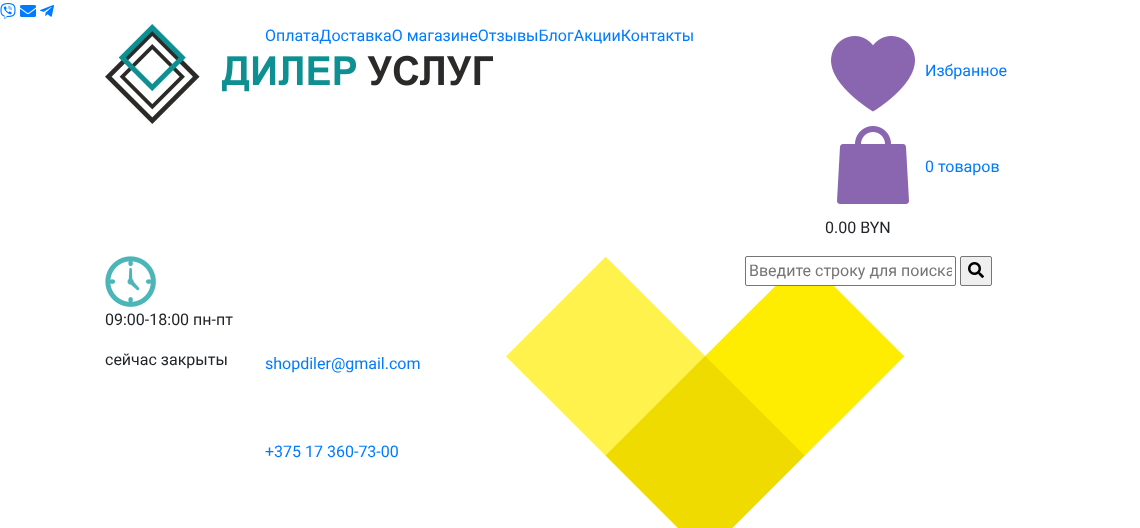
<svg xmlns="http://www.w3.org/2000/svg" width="1140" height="528">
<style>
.a{font:16px Roboto;fill:#007bff}
.b{font:16px Roboto;fill:#212529}
.c{font:16px Roboto;fill:#757575}
</style>
<defs>
<clipPath id="clip1"><path d="M749 261h203v19H749z"/></clipPath>
</defs>
<rect width="100%" height="100%" fill="#fff"/>
<image href="1.png" x="0" y="3" width="16" height="16"/>
<image href="2.png" x="20" y="5" width="16" height="12"/>
<image href="3.png" x="40" y="5" width="14" height="12"/>
<image href="4.png" x="105" y="24" width="388" height="100"/>
<image href="5.png" x="831" y="36" width="84" height="76"/>
<image href="6.png" x="837" y="126" width="72" height="78"/>
<image href="7.png" x="506" y="256" width="398" height="272"/>
<rect fill="#fff" stroke="#767676" x="745.5" y="256.5" width="210" height="29" rx="1.5"/>
<rect fill="#efefef" stroke="#767676" x="960.5" y="256.5" width="31" height="29" rx="1.5"/>
<image href="8.png" x="968" y="262" width="16" height="16"/>
<image href="9.png" x="105" y="256" width="51" height="51"/>
<text class="a" x="265" y="41">ОплатаДоставкаО магазинеОтзывыБлогАкцииКонтакты</text>
<text class="a" x="925" y="76">Избранное</text>
<text class="a" x="925" y="172">0 товаров</text>
<text class="b" x="825" y="233">0.00 BYN</text>
<g clip-path="url(#clip1)">
<text class="c" x="749" y="276">Введите строку для поиска</text>
</g>
<text class="b" x="105" y="325">09:00-18:00 пн-пт</text>
<text class="b" x="105" y="365">сейчас закрыты</text>
<text class="a" x="265" y="369">shopdiler@gmail.com</text>
<text class="a" x="265" y="457">+375 17 360-73-00</text>
</svg>
